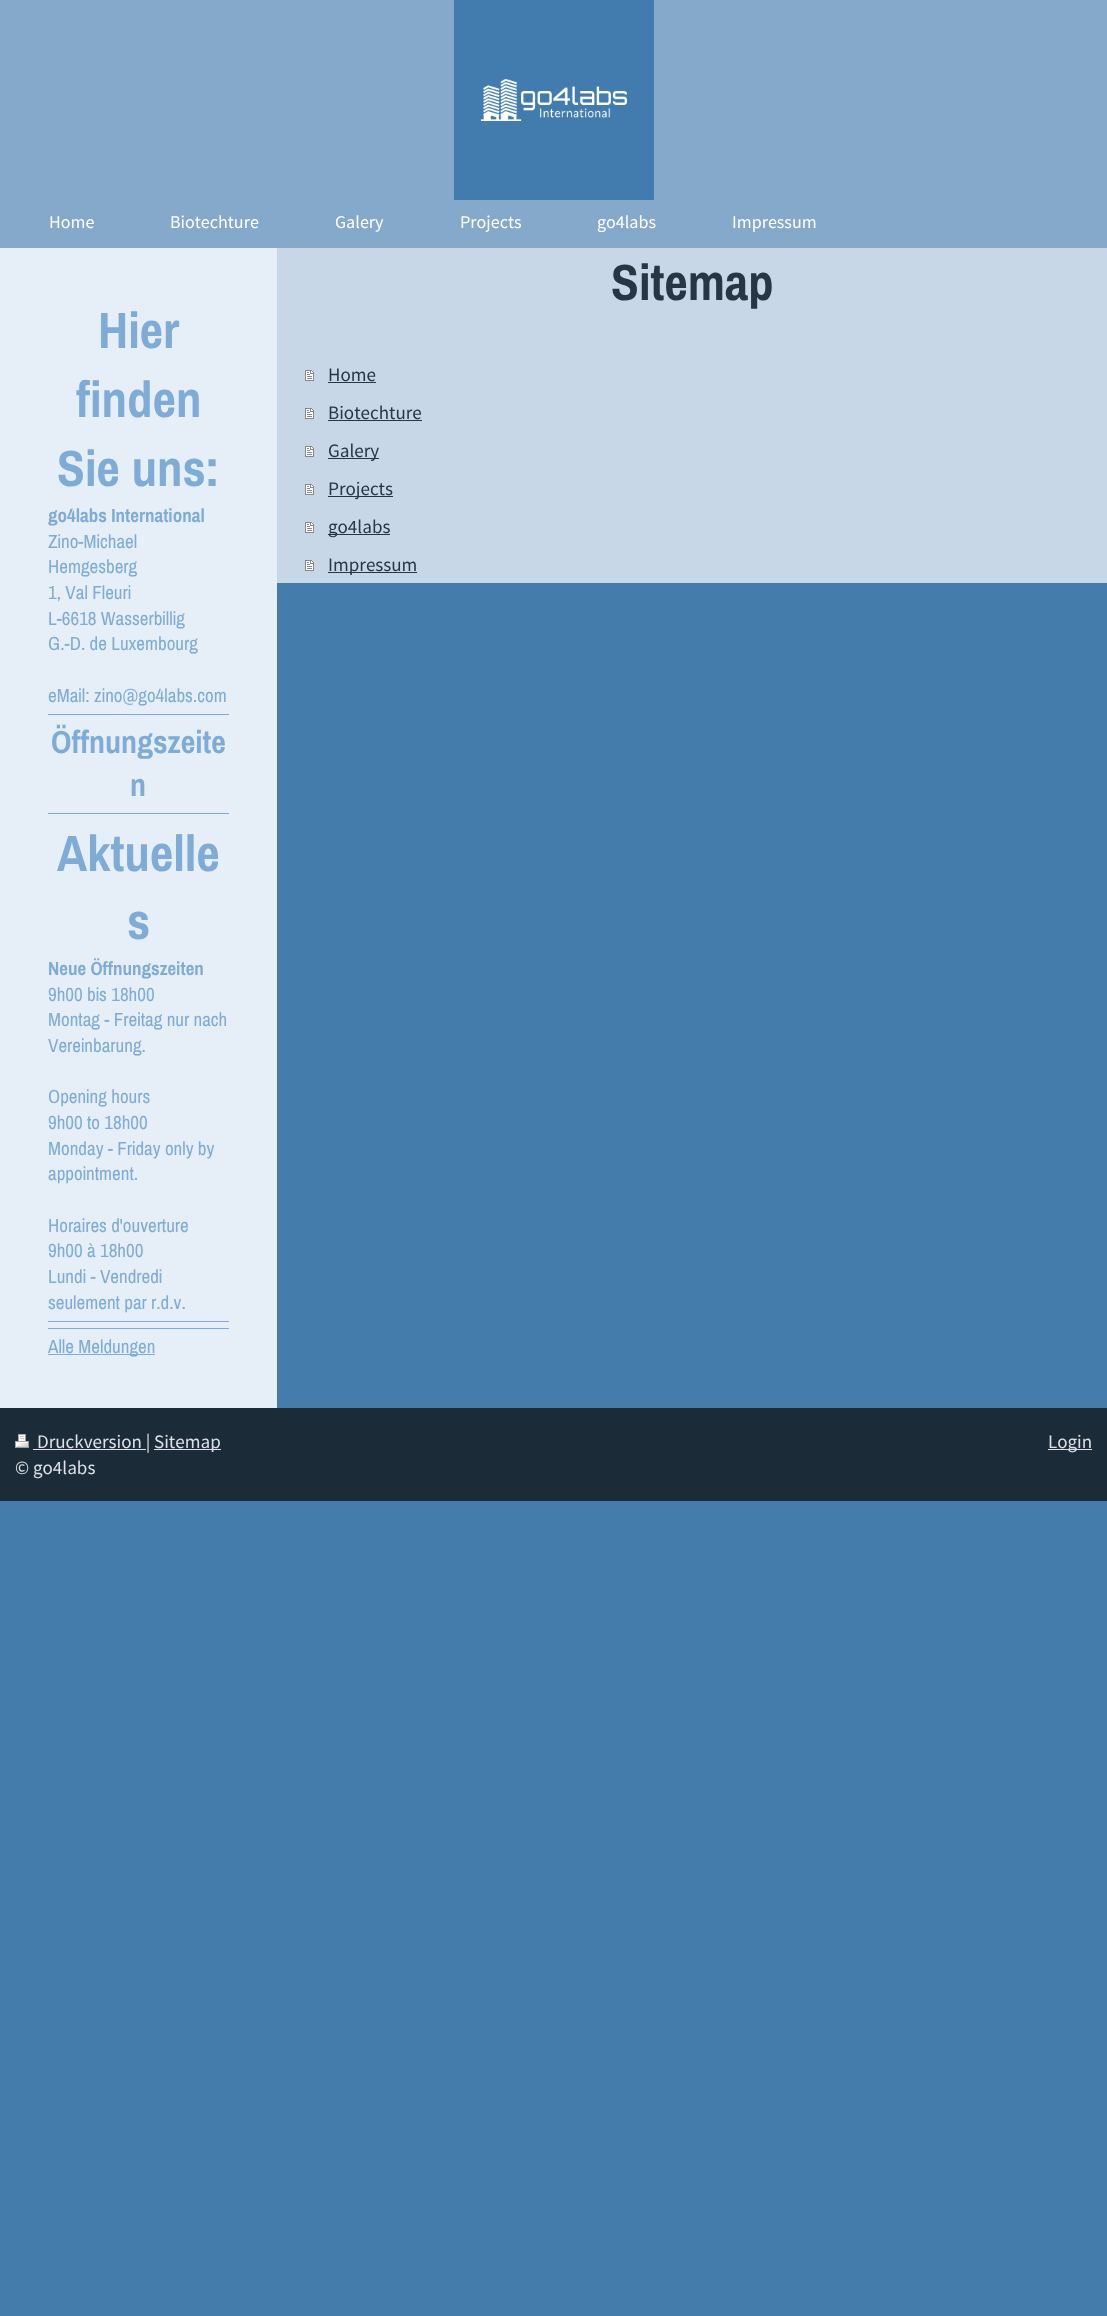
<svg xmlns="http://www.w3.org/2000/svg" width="1107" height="2316">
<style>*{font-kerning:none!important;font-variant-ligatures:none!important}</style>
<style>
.a{font:18px Source Sans Pro;fill:#fff}
.b{font:bold 51px Archivo Narrow;fill:#7eacd6}
.c{font:bold 19px Archivo Narrow;fill:#7eacd6}
.d{font:19px Archivo Narrow;fill:#7eacd6}
.e{font:bold 32px Archivo Narrow;fill:#7eacd6}
.f{font:bold 51px Archivo Narrow;fill:#283542}
.g{font:19px Source Sans Pro;fill:#283542}
.h{font:19px Source Sans Pro;fill:#dee2e6}
</style>
<rect width="100%" height="100%" fill="#447cac"/>
<path fill="#85a9ca" d="M0 0h1107v248H0z"/>
<image href="1.png" x="454" y="0" width="200" height="200"/>
<path fill="#e6eff7" d="M0 248h277v1160H0z"/>
<path fill="#7eacd6" d="M48 714h181v1H48z"/>
<path fill="#7eacd6" d="M48 813h181v1H48z"/>
<path fill="#7eacd6" d="M48 1321h181v1H48z"/>
<path fill="#7eacd6" d="M48 1328h181v1H48z"/>
<path fill="#7eacd6" d="M48 1354h107v1H48z"/>
<path fill="#c7d7e7" d="M277 248h830v335H277z"/>
<image href="2.png" x="305" y="370" width="9" height="11"/>
<path fill="#283542" d="M328 382h48v1H328z"/>
<image href="2.png" x="305" y="408" width="9" height="11"/>
<path fill="#283542" d="M328 420h94v1H328z"/>
<image href="2.png" x="305" y="446" width="9" height="11"/>
<path fill="#283542" d="M328 458h51v1H328z"/>
<image href="2.png" x="305" y="484" width="9" height="11"/>
<path fill="#283542" d="M328 496h65v1H328z"/>
<image href="2.png" x="305" y="522" width="9" height="11"/>
<path fill="#283542" d="M328 534h62v1H328z"/>
<image href="2.png" x="305" y="560" width="9" height="11"/>
<path fill="#283542" d="M328 572h89v1H328z"/>
<path fill="#1c2b38" d="M0 1408h1107v93H0z"/>
<image href="3.png" x="15" y="1434" width="14" height="14"/>
<path fill="#dee2e6" d="M33 1449h113v1H33z"/>
<path fill="#dee2e6" d="M154 1449h67v1H154z"/>
<path fill="#dee2e6" d="M1048 1449h44v1H1048z"/>
<text class="a" x="49" y="228">Home</text>
<text class="a" x="170" y="228">Biotechture</text>
<text class="a" x="335" y="228">Galery</text>
<text class="a" x="460" y="228">Projects</text>
<text class="a" x="597" y="228">go4labs</text>
<text class="a" x="732" y="228">Impressum</text>
<text class="b" x="98" y="348">Hier</text>
<text class="b" x="76" y="417">finden</text>
<text class="b" x="57" y="486">Sie uns:</text>
<text class="c" x="48" y="522">go4labs International</text>
<text class="d" x="48" y="548">Zino-Michael</text>
<text class="d" x="48" y="573">Hemgesberg</text>
<text class="d" x="48" y="599">1, Val Fleuri</text>
<text class="d" x="48" y="625">L-6618 Wasserbillig</text>
<text class="d" x="48" y="650">G.-D. de Luxembourg</text>
<text class="d" x="48" y="702">eMail: zino@go4labs.com</text>
<text class="e" x="51" y="753">Öffnungszeite</text>
<text class="e" x="130" y="796">n</text>
<text class="b" x="57" y="871">Aktuelle</text>
<text class="b" x="127" y="939">s</text>
<text class="c" x="48" y="975">Neue Öffnungszeiten</text>
<text class="d" x="48" y="1001">9h00 bis 18h00</text>
<text class="d" x="48" y="1026">Montag - Freitag nur nach</text>
<text class="d" x="48" y="1052">Vereinbarung.</text>
<text class="d" x="48" y="1103">Opening hours</text>
<text class="d" x="48" y="1129">9h00 to 18h00</text>
<text class="d" x="48" y="1155">Monday - Friday only by</text>
<text class="d" x="48" y="1180">appointment.</text>
<text class="d" x="48" y="1232">Horaires d'ouverture</text>
<text class="d" x="48" y="1257">9h00 à 18h00</text>
<text class="d" x="48" y="1283">Lundi - Vendredi</text>
<text class="d" x="48" y="1309">seulement par r.d.v.</text>
<text class="d" x="48" y="1353">Alle Meldungen</text>
<text class="f" x="611" y="300">Sitemap</text>
<text class="g" x="328" y="381">Home</text>
<text class="g" x="328" y="419">Biotechture</text>
<text class="g" x="328" y="457">Galery</text>
<text class="g" x="328" y="495">Projects</text>
<text class="g" x="328" y="533">go4labs</text>
<text class="g" x="328" y="571">Impressum</text>
<text class="h" x="37" y="1448">Druckversion |</text>
<text class="h" x="154" y="1448">Sitemap</text>
<text class="h" x="15" y="1474">© go4labs</text>
<text class="h" x="1048" y="1448">Login</text>
</svg>
